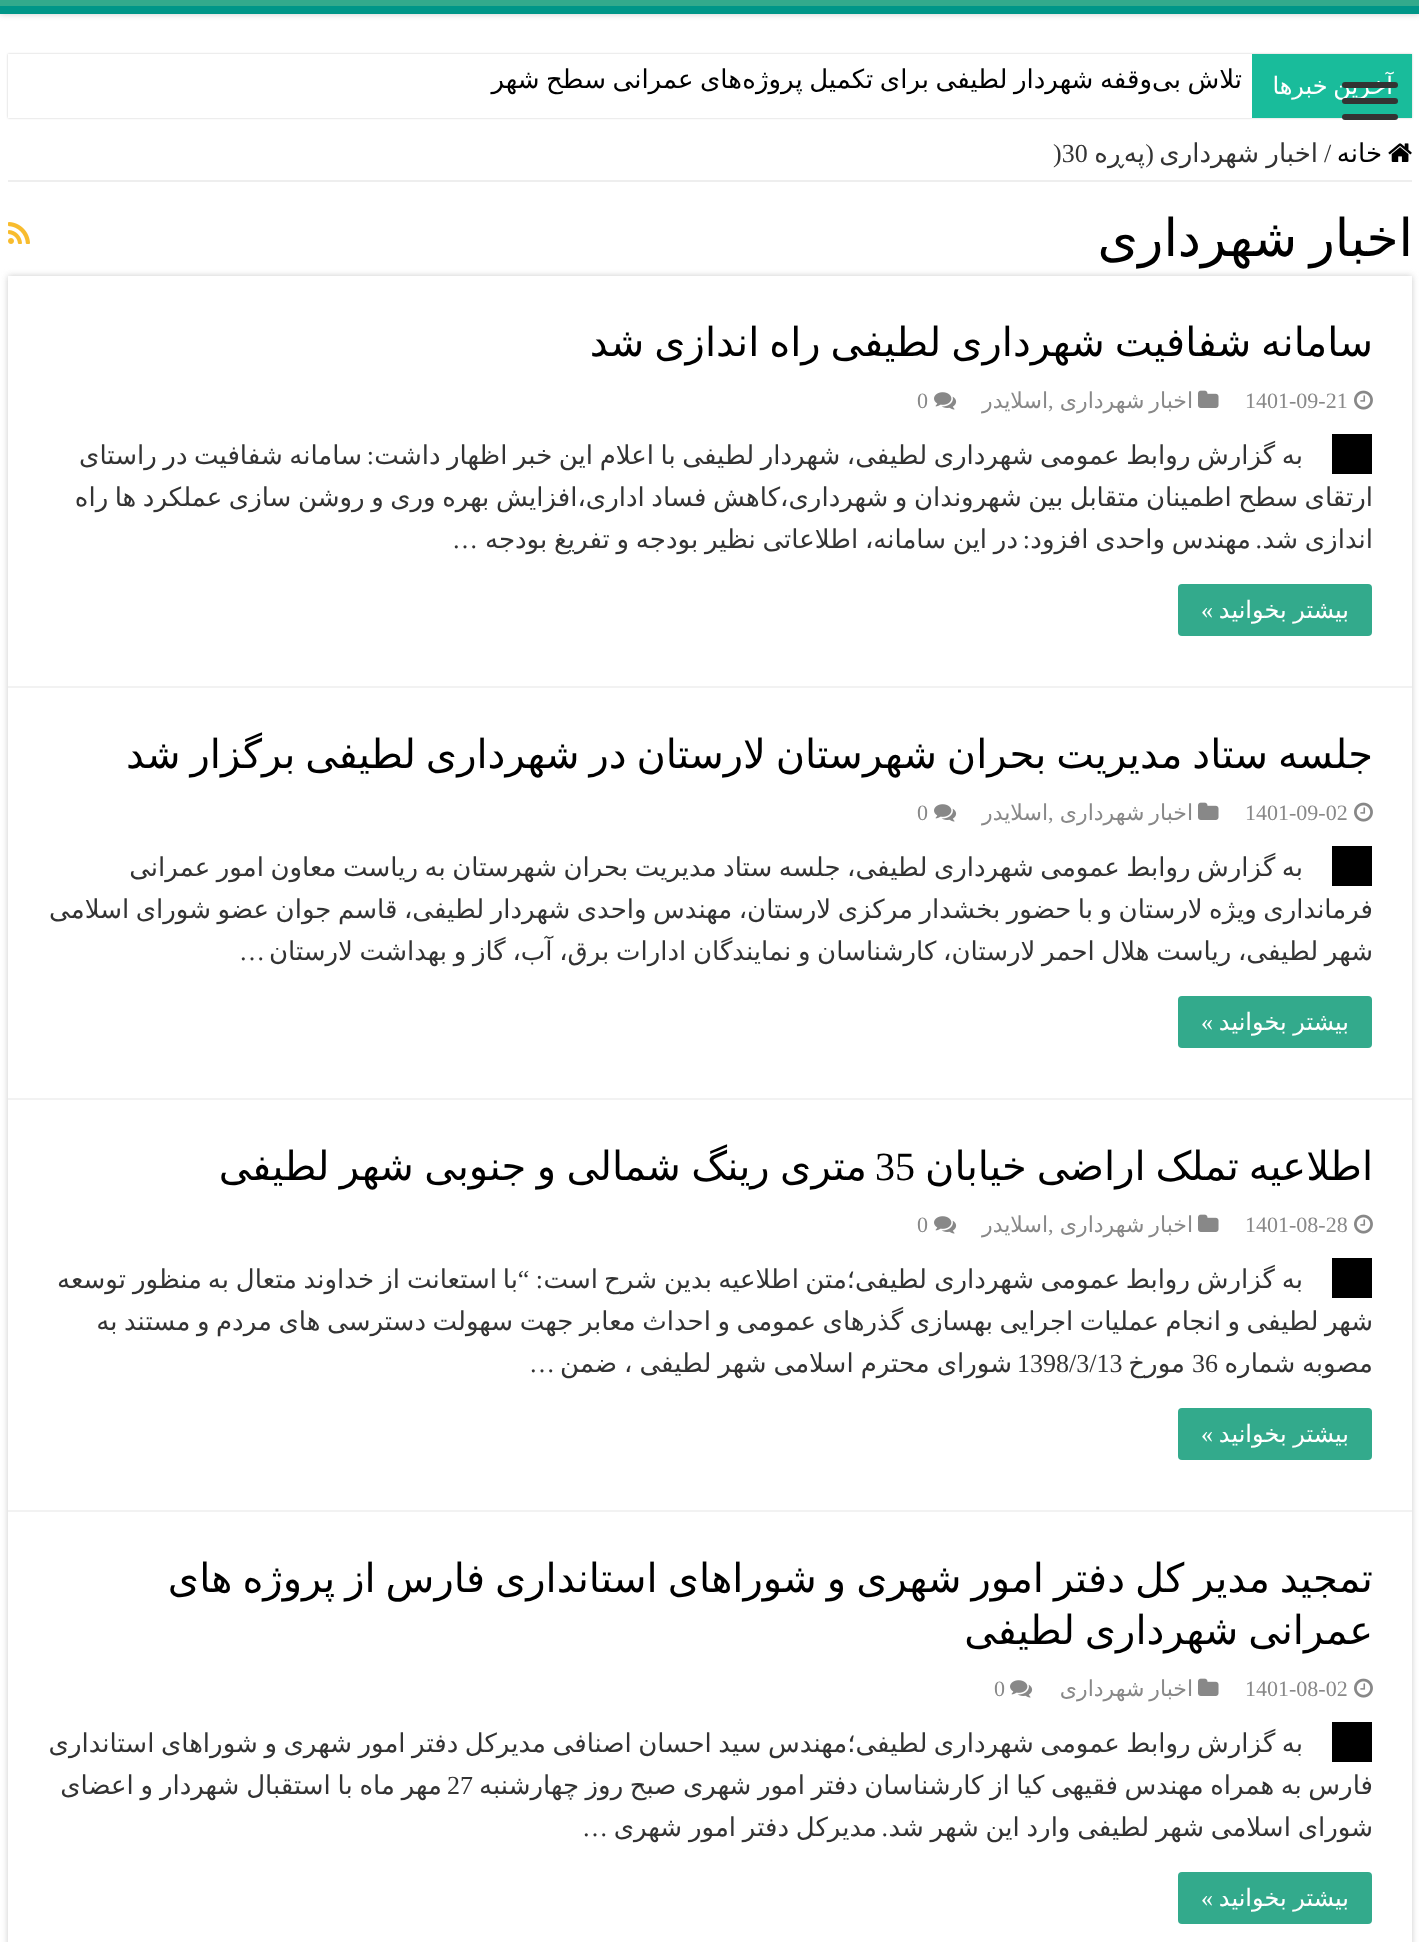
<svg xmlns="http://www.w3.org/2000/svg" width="1419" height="1942">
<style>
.a{font:24px DejaVu Sans;direction:rtl;fill:#fff}
.b{font:26px DejaVu Sans;direction:rtl;fill:#000}
.c{font:26px Liberation Serif;fill:#333}
.d{font:26px DejaVu Sans;direction:rtl;fill:#333}
.e{font:26px Liberation Serif;direction:rtl;fill:#333}
.f{font:52px DejaVu Sans;direction:rtl;fill:#000}
.g{font:40px DejaVu Sans;direction:rtl;fill:#000}
.h{font:22px Liberation Serif;fill:#888}
.i{font:22px DejaVu Sans;direction:rtl;fill:#888}
.j{font:24px Liberation Serif;direction:rtl;fill:#fff}
.k{font:40px Liberation Serif;fill:#000}
</style>
<defs>
<clipPath id="clip1"><path d="M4 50h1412v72h-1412zm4 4h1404v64h-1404z" clip-rule="evenodd"/></clipPath>
<clipPath id="clip2"><path d="M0 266h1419v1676h-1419zm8 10h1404v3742h-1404z" clip-rule="evenodd"/></clipPath>
</defs>
<rect width="100%" height="100%" fill="#fff"/>
<path fill="#cacaca" filter="blur(3px)" d="M0 0h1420v14H0z"/>
<path fill="#009688" d="M0 6h1419v8H0z"/>
<path fill="#33aa8c" d="M0 0h1419v6H0z"/>
<g clip-path="url(#clip1)">
<path fill="#cacaca" filter="blur(1px)" d="M8 54h1404v64H8z"/>
</g>
<path fill="#19bc9b" d="M1252 54h160v64H1252z"/>
<rect fill="#333" x="1342" y="114" width="56" height="6" rx="3"/>
<path fill="#eee" d="M8 180h1404v2H8z"/>
<image href="1.png" x="1388" y="143" width="24" height="19"/>
<image href="2.png" x="8" y="222" width="22" height="22"/>
<g clip-path="url(#clip2)">
<path fill="#cacaca" filter="blur(3px)" d="M8 276h1404v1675H8z"/>
</g>
<path fill="#f2f2f2" d="M8 686h1404v2H8z"/>
<image href="3.png" x="1354" y="390" width="19" height="20"/>
<image href="4.png" x="1198" y="390" width="21" height="18"/>
<image href="5.png" x="934" y="392" width="23" height="18"/>
<path fill="#000" d="M1332 434h40v40H1332z"/>
<rect fill="#33aa8c" x="1178" y="584" width="194" height="52" rx="4"/>
<path fill="#f2f2f2" d="M8 1098h1404v2H8z"/>
<image href="3.png" x="1354" y="802" width="19" height="20"/>
<image href="4.png" x="1198" y="802" width="21" height="18"/>
<image href="5.png" x="934" y="804" width="23" height="18"/>
<path fill="#000" d="M1332 846h40v40H1332z"/>
<rect fill="#33aa8c" x="1178" y="996" width="194" height="52" rx="4"/>
<path fill="#f2f2f2" d="M8 1510h1404v2H8z"/>
<image href="3.png" x="1354" y="1214" width="19" height="20"/>
<image href="4.png" x="1198" y="1214" width="21" height="18"/>
<image href="5.png" x="934" y="1216" width="23" height="18"/>
<path fill="#000" d="M1332 1258h40v40H1332z"/>
<rect fill="#33aa8c" x="1178" y="1408" width="194" height="52" rx="4"/>
<image href="3.png" x="1354" y="1678" width="19" height="20"/>
<image href="4.png" x="1198" y="1678" width="21" height="18"/>
<image href="5.png" x="1010" y="1680" width="23" height="18"/>
<path fill="#000" d="M1332 1722h40v40H1332z"/>
<rect fill="#33aa8c" x="1178" y="1872" width="194" height="52" rx="4"/>
<text class="a" x="1393" y="94" word-spacing="-2">آخرین خبرها</text>
<rect fill="#333" x="1342" y="98" width="56" height="6" rx="3"/>
<rect fill="#333" x="1342" y="82" width="56" height="6" rx="3"/>
<text class="b" x="742" y="88" word-spacing="-1.75">های عمرانی سطح شهر</text>
<text class="b" x="1152" y="88" word-spacing="-1.75">وقفه شهردار لطیفی برای تکمیل پروژه</text>
<text class="b" x="1242" y="88" word-spacing="-1.75">تلاش بی</text>
<text class="b" x="1382" y="162">خانه</text>
<text class="c" x="1324" y="162">/</text>
<text class="d" x="1318" y="162" word-spacing="-1">اخبار شهرداری</text>
<text class="e" x="1154" y="162">(</text>
<text class="d" x="1145" y="162">پەڕە</text>
<text class="c" x="1053" y="162">)30</text>
<text class="f" x="1413" y="256" word-spacing="-4">اخبار شهرداری</text>
<text class="g" x="1373" y="356" word-spacing="-2.75">سامانه شفافیت شهرداری لطیفی راه اندازی شد</text>
<text class="h" x="1245" y="408">1401-09-21</text>
<text class="i" x="1193" y="408" word-spacing="-2">اخبار شهرداری</text>
<text class="h" x="1048" y="408">,</text>
<text class="i" x="1048" y="408">اسلایدر</text>
<text class="h" x="917" y="408">0</text>
<text class="d" x="1303" y="464" word-spacing="-1.7">به گزارش روابط عمومی شهرداری لطیفی، شهردار لطیفی با اعلام این خبر اظهار داشت</text>
<text class="e" x="374" y="464">:</text>
<text class="d" x="362" y="464" word-spacing="-1.7">سامانه شفافیت در راستای</text>
<text class="d" x="1373" y="506" word-spacing="-1.75">ارتقای سطح اطمینان متقابل بین شهروندان و شهرداری،کاهش فساد اداری،افزایش بهره وری و روشن سازی عملکرد ها راه</text>
<text class="d" x="1373" y="548" word-spacing="-1.5">اندازی شد</text>
<text class="d" x="1251" y="548" word-spacing="-1.5">مهندس واحدی افزود</text>
<text class="d" x="1018" y="548" word-spacing="-1.5">در این سامانه، اطلاعاتی نظیر بودجه و تفریغ بودجه</text>
<text class="e" x="1262" y="548">.</text>
<text class="e" x="1030" y="548">:</text>
<text class="e" x="478" y="548">…</text>
<text class="a" x="1349" y="618" word-spacing="-1">بیشتر بخوانید</text>
<text class="j" x="1213" y="618">»</text>
<text class="g" x="1373" y="768" word-spacing="-2.75">جلسه ستاد مدیریت بحران شهرستان لارستان در شهرداری لطیفی برگزار شد</text>
<text class="h" x="1245" y="820">1401-09-02</text>
<text class="i" x="1193" y="820" word-spacing="-2">اخبار شهرداری</text>
<text class="h" x="1048" y="820">,</text>
<text class="i" x="1048" y="820">اسلایدر</text>
<text class="h" x="917" y="820">0</text>
<text class="d" x="1303" y="876" word-spacing="-1.75">به گزارش روابط عمومی شهرداری لطیفی، جلسه ستاد مدیریت بحران شهرستان به ریاست معاون امور عمرانی</text>
<text class="d" x="1373" y="918" word-spacing="-1.75">فرمانداری ویژه لارستان و با حضور بخشدار مرکزی لارستان، مهندس واحدی شهردار لطیفی، قاسم جوان عضو شورای اسلامی</text>
<text class="d" x="1373" y="960" word-spacing="-1.6">شهر لطیفی، ریاست هلال احمر لارستان، کارشناسان و نمایندگان ادارات برق، آب، گاز و بهداشت لارستان</text>
<text class="e" x="265" y="960">…</text>
<text class="a" x="1349" y="1030" word-spacing="-1">بیشتر بخوانید</text>
<text class="j" x="1213" y="1030">»</text>
<text class="g" x="1373" y="1180" word-spacing="-2.75">اطلاعیه تملک اراضی خیابان</text>
<text class="g" x="867" y="1180" word-spacing="-2.25">متری رینگ شمالی و جنوبی شهر لطیفی</text>
<text class="k" x="875" y="1180">35</text>
<text class="h" x="1245" y="1232">1401-08-28</text>
<text class="i" x="1193" y="1232" word-spacing="-2">اخبار شهرداری</text>
<text class="h" x="1048" y="1232">,</text>
<text class="i" x="1048" y="1232">اسلایدر</text>
<text class="h" x="917" y="1232">0</text>
<text class="d" x="1303" y="1288">به</text>
<text class="d" x="1275" y="1288">گزارش</text>
<text class="d" x="1190" y="1288">روابط</text>
<text class="d" x="1120" y="1288">عمومی</text>
<text class="d" x="1034" y="1288">شهرداری</text>
<text class="d" x="927" y="1288">لطیفی؛متن</text>
<text class="d" x="799" y="1288">اطلاعیه</text>
<text class="d" x="712" y="1288">بدین</text>
<text class="d" x="657" y="1288">شرح</text>
<text class="d" x="598" y="1288">است</text>
<text class="e" x="543" y="1288">: “</text>
<text class="d" x="518" y="1288">با</text>
<text class="d" x="497" y="1288">استعانت</text>
<text class="d" x="400" y="1288">از</text>
<text class="d" x="374" y="1288">خداوند</text>
<text class="d" x="297" y="1288">متعال</text>
<text class="d" x="229" y="1288">به</text>
<text class="d" x="202" y="1288">منظور</text>
<text class="d" x="126" y="1288">توسعه</text>
<text class="d" x="1373" y="1330" word-spacing="-1.75">شهر لطیفی و انجام عملیات اجرایی بهسازی گذرهای عمومی و احداث معابر جهت سهولت دسترسی های مردم و مستند به</text>
<text class="d" x="1373" y="1372" word-spacing="-1.75">مصوبه شماره</text>
<text class="c" x="1192" y="1372">36</text>
<text class="d" x="1185" y="1372">مورخ</text>
<text class="c" x="1017" y="1372">1398/3/13</text>
<text class="d" x="1012" y="1372" word-spacing="-1.25">شورای محترم اسلامی شهر لطیفی ، ضمن</text>
<text class="e" x="555" y="1372">…</text>
<text class="a" x="1349" y="1442" word-spacing="-1">بیشتر بخوانید</text>
<text class="j" x="1213" y="1442">»</text>
<text class="g" x="1373" y="1592" word-spacing="-2.75">تمجید مدیر کل دفتر امور شهری و شوراهای استانداری فارس از پروژه های</text>
<text class="g" x="1373" y="1644" word-spacing="-2.75">عمرانی شهرداری لطیفی</text>
<text class="h" x="1245" y="1696">1401-08-02</text>
<text class="i" x="1193" y="1696" word-spacing="-2">اخبار شهرداری</text>
<text class="h" x="994" y="1696">0</text>
<text class="d" x="1303" y="1752" word-spacing="-1.75">به گزارش روابط عمومی شهرداری لطیفی؛مهندس سید احسان اصنافی مدیرکل دفتر امور شهری و شوراهای استانداری</text>
<text class="d" x="1373" y="1794" word-spacing="-1.75">فارس به همراه مهندس فقیهی کیا از کارشناسان دفتر امور شهری صبح روز چهارشنبه</text>
<text class="d" x="442" y="1794" word-spacing="-1.5">مهر ماه با استقبال شهردار و اعضای</text>
<text class="c" x="447" y="1794">27</text>
<text class="d" x="1373" y="1836" word-spacing="-1.5">شورای اسلامی شهر لطیفی وارد این شهر شد</text>
<text class="e" x="888" y="1836">.</text>
<text class="d" x="877" y="1836" word-spacing="-1.5">مدیرکل دفتر امور شهری</text>
<text class="e" x="608" y="1836">…</text>
<text class="a" x="1349" y="1906" word-spacing="-1">بیشتر بخوانید</text>
<text class="j" x="1213" y="1906">»</text>
</svg>
